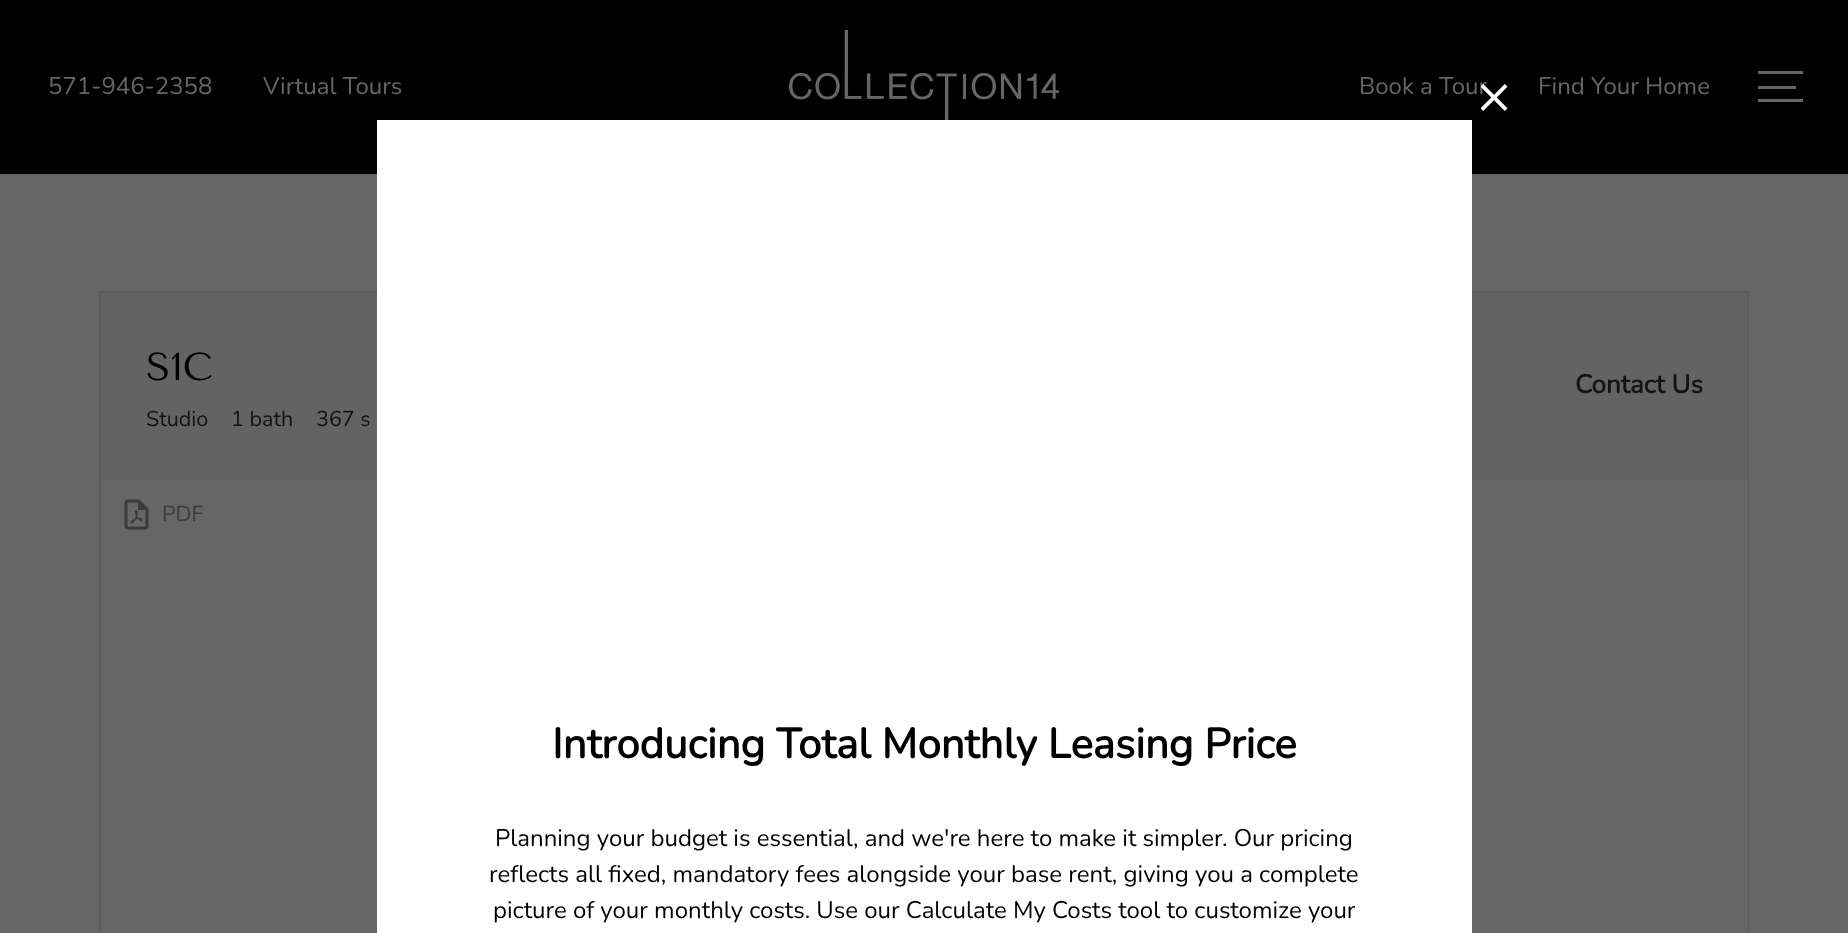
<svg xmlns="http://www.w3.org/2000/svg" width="1848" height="933">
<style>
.a{font:200 24px Nunito;fill:#666}
.b{font:39px Tenor Sans;fill:#000}
.c{font:200 21.5px Nunito;fill:#141414}
.d{font:bold 26px Nunito;fill:#141414}
.e{font:200 21.5px Nunito;fill:#3c3c3c}
.f{font:bold 42px Nunito;fill:#000}
.g{font:200 24px Nunito;fill:#000}
</style>
<rect width="100%" height="100%" fill="#666"/>
<path fill="#000" d="M0 0h1848v174H0z"/>
<image href="1.png" x="789" y="30" width="270" height="90"/>
<path fill="#666" d="M1758 71h45v3H1758z"/>
<path fill="#666" d="M1758 86h38v3H1758z"/>
<path fill="#666" d="M1758 99h45v3H1758z"/>
<path fill="none" stroke="#5c5c5c" stroke-width="2" d="M100 292h1648v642H100z"/>
<path fill="#636363" d="M101 293h1647v189H101z"/>
<path fill="#666" d="M1747 482h1v451H1747z"/>
<image href="2.png" x="101" y="481" width="1646" height="452"/>
<image href="3.png" x="124" y="499" width="25" height="31"/>
<path fill="#fff" d="M377 120h1095v813H377z"/>
<text class="a" x="48" y="94">571-946-2358</text>
<text class="a" x="263" y="94">Virtual Tours</text>
<text class="a" x="1359" y="94">Book a Tour</text>
<text class="a" x="1538" y="94">Find Your Home</text>
<text class="b" x="146" y="380">S1C</text>
<text class="c" x="146" y="426">Studio</text>
<text class="c" x="231" y="426">1 bath</text>
<text class="c" x="316" y="426">367 s</text>
<text class="d" x="1575" y="393">Contact Us</text>
<text class="e" x="162" y="521">PDF</text>
<image href="4.png" x="1481" y="84" width="27" height="27"/>
<text class="f" x="552" y="758">Introducing Total Monthly Leasing Price</text>
<text class="g" x="495" y="846">Planning your budget is essential, and we're here to make it simpler. Our pricing</text>
<text class="g" x="489" y="882">reflects all fixed, mandatory fees alongside your base rent, giving you a complete</text>
<text class="g" x="493" y="918">picture of your monthly costs. Use our Calculate My Costs tool to customize your</text>
</svg>
